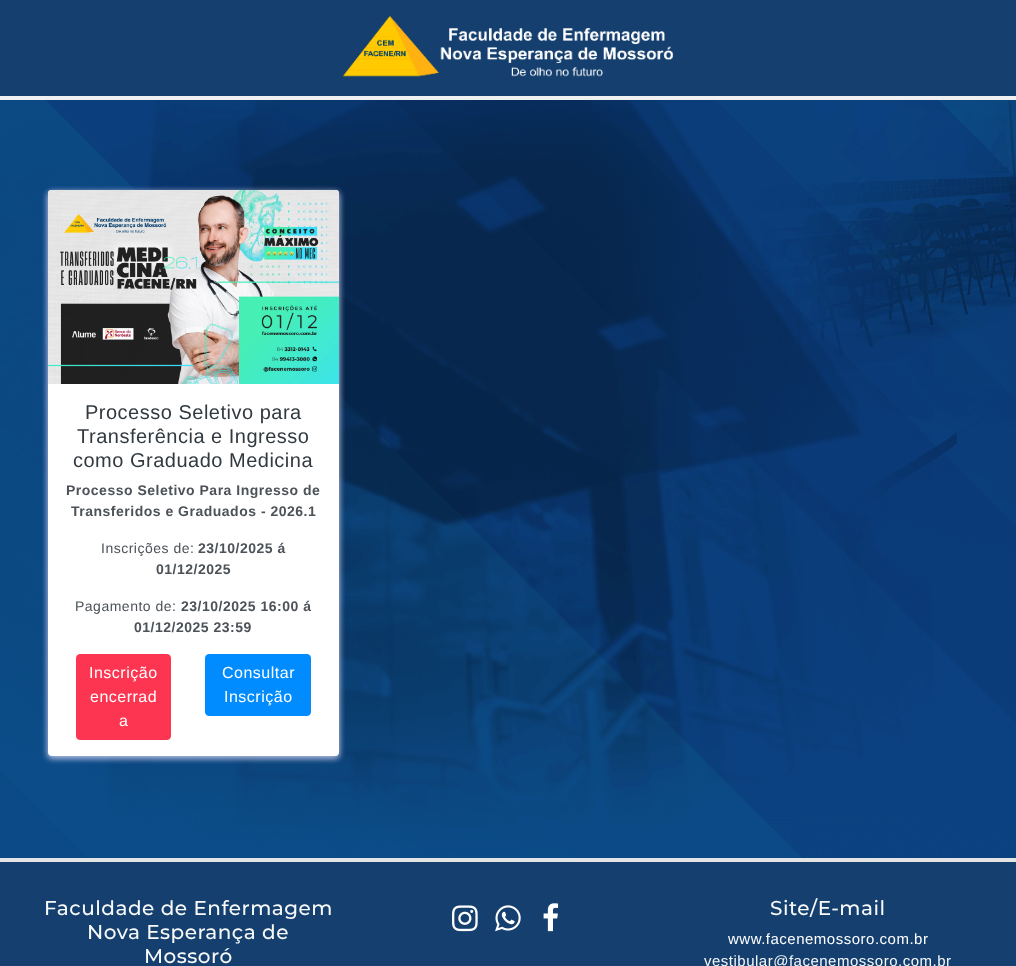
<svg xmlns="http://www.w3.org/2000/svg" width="1016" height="966">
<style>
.a{font:20px Liberation Sans;letter-spacing:0.5px;fill:#32393f}
.b{font:bold 14px Liberation Sans;letter-spacing:0.5px;fill:#4c5258}
.c{font:14px Liberation Sans;letter-spacing:0.5px;fill:#4c5258}
.d{font:16px Liberation Sans;letter-spacing:0.5px;fill:#fff}
.e{font:500 20px Montserrat;letter-spacing:0.5px;fill:#f7f9f9}
.f{font:15px Liberation Sans;letter-spacing:0.5px;fill:#fff}
.g{font:15px Liberation Sans;letter-spacing:0.5px;fill:#f7f9f9}
</style>
<rect width="100%" height="100%" fill="#fff"/>
<image href="1.png" x="0" y="100" width="1016" height="758"/>
<path fill="#143f6e" d="M0 0h1016v96H0z"/>
<path fill="#f0f0f0" d="M0 96h1016v4H0z"/>
<image href="2.png" x="343" y="16" width="330" height="61"/>
<rect fill="#ceceee8a" filter="blur(3px)" x="48" y="192" width="291" height="566" rx="4"/>
<rect fill="#dadafda6" filter="blur(3px)" x="48" y="192" width="291" height="566" rx="4"/>
<rect fill="#fff" x="48" y="190" width="291" height="566" rx="4"/>
<image href="3.png" x="48" y="190" width="291" height="194"/>
<rect fill="#fd3550" stroke="#fd3550" x="76.5" y="654.5" width="94" height="85" rx="3.5"/>
<rect fill="#008cff" stroke="#008cff" x="205.5" y="654.5" width="105" height="61" rx="3.5"/>
<path fill="#143f6e" d="M0 862h1016v104H0z"/>
<path fill="#e4e4e4" d="M0 858h1016v4H0z"/>
<image href="4.png" x="452" y="905" width="26" height="27"/>
<image href="5.png" x="495" y="905" width="26" height="27"/>
<image href="6.png" x="543" y="903" width="16" height="29"/>
<text class="a" x="85" y="419">Processo Seletivo para</text>
<text class="a" x="77" y="443">Transferência e Ingresso</text>
<text class="a" x="73" y="467">como Graduado Medicina</text>
<text class="b" x="66" y="495">Processo Seletivo Para Ingresso de</text>
<text class="b" x="71" y="516">Transferidos e Graduados - 2026.1</text>
<text class="c" x="101" y="553">Inscrições de:</text>
<text class="b" x="198" y="553">23/10/2025 á</text>
<text class="b" x="156" y="574">01/12/2025</text>
<text class="c" x="75" y="611">Pagamento de:</text>
<text class="b" x="181" y="611">23/10/2025 16:00 á</text>
<text class="b" x="134" y="632">01/12/2025 23:59</text>
<text class="d" x="89" y="678">Inscrição</text>
<text class="d" x="90" y="702">encerrad</text>
<text class="d" x="119" y="726">a</text>
<text class="d" x="222" y="678">Consultar</text>
<text class="d" x="224" y="702">Inscrição</text>
<text class="e" x="44" y="915">Faculdade de Enfermagem</text>
<text class="e" x="87" y="939">Nova Esperança de</text>
<text class="e" x="144" y="963">Mossoró</text>
<text class="e" x="770" y="915">Site/E-mail</text>
<text class="f" x="728" y="944">www.facenemossoro.com.br</text>
<text class="g" x="704" y="966">vestibular@facenemossoro.com.br</text>
</svg>
